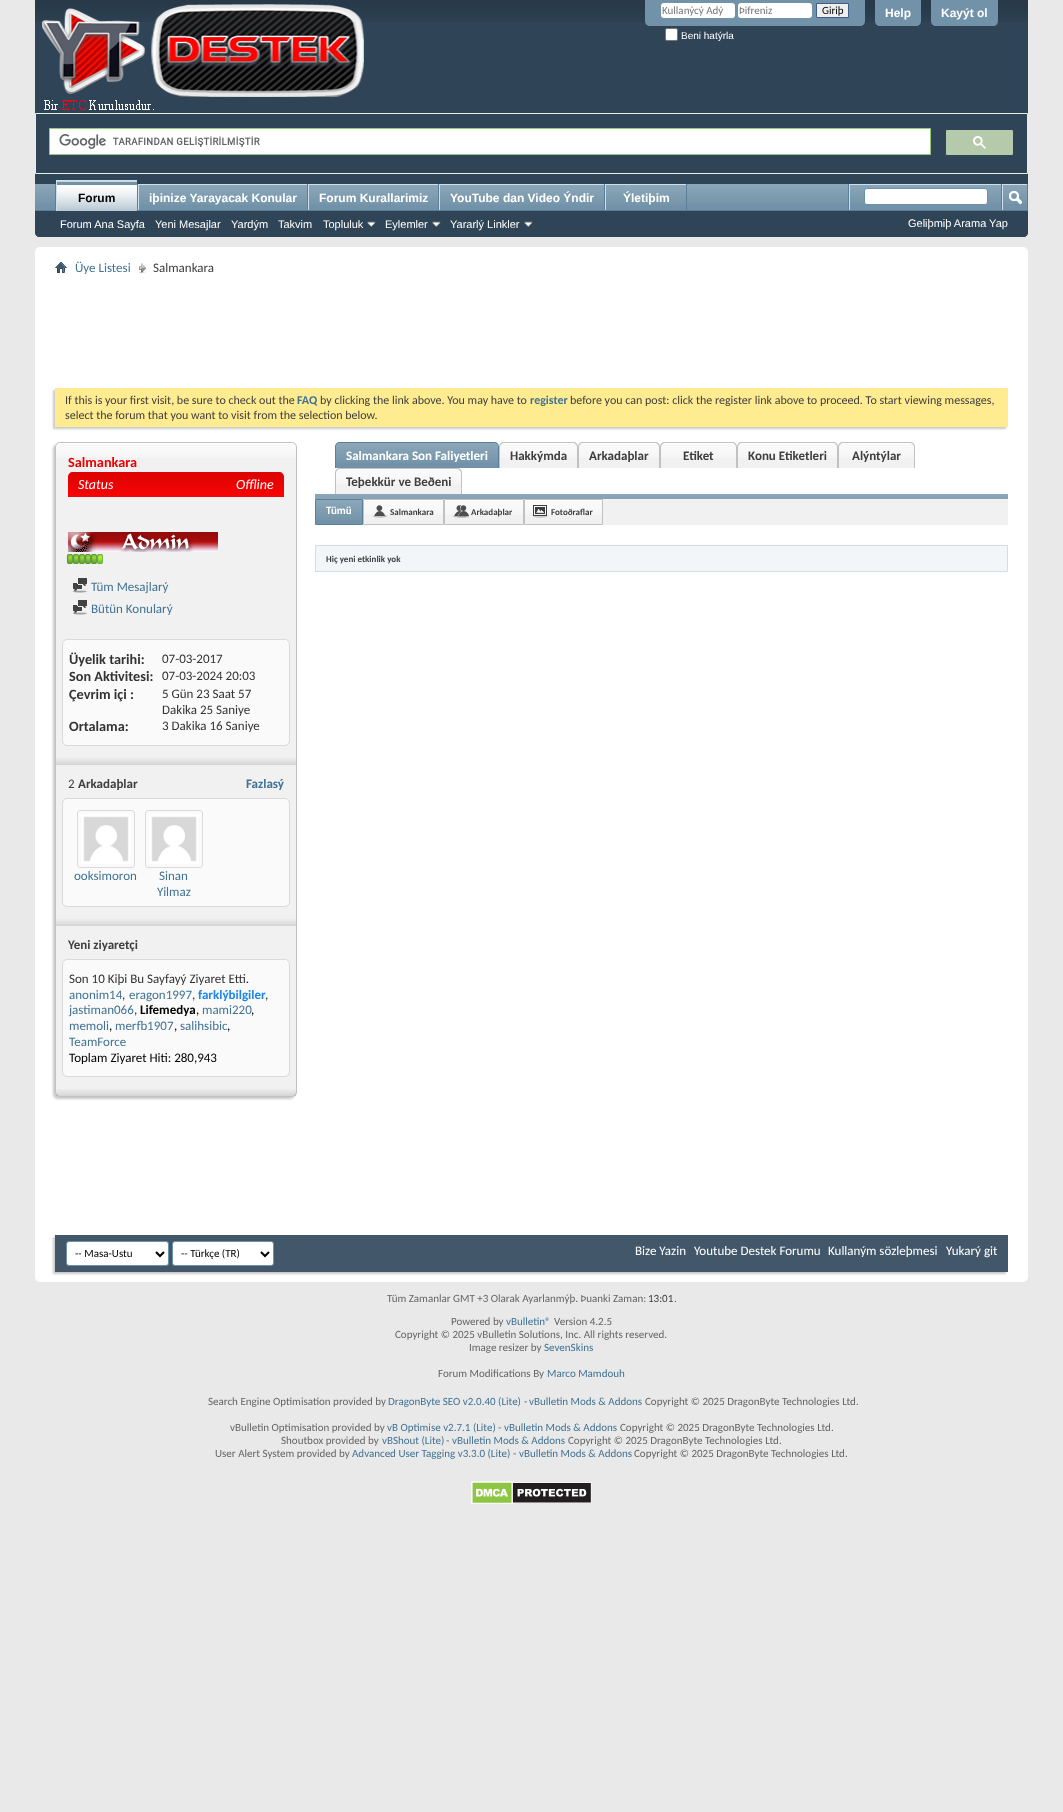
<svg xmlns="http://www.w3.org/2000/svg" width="1063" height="1812">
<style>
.a{font:11px Carlito;fill:#777}
.b{font:11px Carlito;fill:#000}
.c{font:10px Liberation Sans;fill:#fff}
.d{font:bold 12px Liberation Sans;fill:#fff}
.e{font:bold 12px Liberation Sans;fill:#000}
.f{font:11px Liberation Sans;fill:#fff}
.g{font:13px Carlito;fill:#417394}
.h{font:13px Carlito;fill:#3e3e3e}
.i{font:12px Carlito;fill:#3e3e3e}
.j{font:bold 12px Carlito;fill:#417394}
.k{font:bold 14.25px Carlito;fill:#e00}
.l{font:italic 14px Carlito;fill:#fff}
.m{font:bold 14.25px Carlito;fill:#333}
.n{font:13px Carlito;fill:#333}
.o{font:bold 13px Carlito;fill:#3e3e3e}
.p{font:bold 13px Carlito;fill:#417394}
.q{font:bold 13px Carlito;fill:#1c86ee}
.r{font:bold 13px Carlito;fill:#000}
.s{font:13px Carlito;fill:#000}
.t{font:bold 13px Carlito;fill:#fff}
.u{font:bold 11px Carlito;fill:#fff}
.v{font:bold 9px Carlito;fill:#3e3e3e}
.w{font:13px Carlito;fill:#fff}
.x{font:11px Carlito;fill:#666}
.y{font:11px Carlito;fill:#3e3e3e}
.z{font:11px Carlito;fill:#417394}
</style>
<defs>
<linearGradient id="g1" gradientUnits="userSpaceOnUse" x1="176" y1="472" x2="176" y2="497"><stop offset="0" stop-color="#db0303"/><stop offset="1" stop-color="#fa0404"/></linearGradient>
</defs>
<rect width="100%" height="100%" fill="#e9e9e9"/>
<path fill="#2f4456" d="M35 0h993v232c0 3-2 5-5 5h-983c-3 0-5-2-5-5z"/>
<image href="1.png" x="35" y="0" width="993" height="22"/>
<image href="2.png" x="42" y="4" width="322" height="106"/>
<path fill="#7192a8" d="M645 0h220v21c0 3-2 5-5 5h-210c-3 0-5-2-5-5z"/>
<rect fill="#fff" x="661" y="3" width="74" height="15" rx="3"/>
<rect fill="#fff" x="738" y="3" width="74" height="15" rx="3"/>
<path fill="#efefef" stroke="#415d8d" d="M816.5 3.5h32v14H816.5z"/>
<rect fill="#fff" stroke="#767676" x="665.5" y="28.5" width="12" height="12" rx="1.5"/>
<path fill="#7192a8" d="M875 0h46v21c0 3-2 5-5 5h-36c-3 0-5-2-5-5z"/>
<path fill="#7192a8" d="M931 0h67v21c0 3-2 5-5 5h-57c-3 0-5-2-5-5z"/>
<path fill="none" stroke="#e1f3da" d="M35.5 113.5h992v60H35.5z"/>
<path fill="#fff" stroke="#94cc7a" d="M49.5 128.5h881v26H49.5z"/>
<image href="3.png" x="59" y="134" width="201" height="15"/>
<rect fill="#b5c9ab" stroke="#2f4456" x="945.5" y="129.5" width="68" height="26" rx="1.5"/>
<image href="4.png" x="973" y="136" width="13" height="13"/>
<path fill="#2f4456" d="M35 184h993v48c0 3-2 5-5 5h-983c-3 0-5-2-5-5z"/>
<path fill="#7192a8" d="M35 184h992v26H35z"/>
<image href="5.png" x="35" y="184" width="992" height="20"/>
<path fill="#5a7f97" d="M137 184h1v26H137z"/>
<path fill="#5a7f97" d="M55 184h1v26H55z"/>
<path fill="#5a7f97" d="M307 184h1v27H307z"/>
<path fill="#cedfeb" d="M138 184h169v1H138z"/>
<path fill="#cedfeb" d="M138 184h1v27H138z"/>
<path fill="#5a7f97" d="M438 184h1v27H438z"/>
<path fill="#cedfeb" d="M308 184h130v1H308z"/>
<path fill="#cedfeb" d="M308 184h1v27H308z"/>
<path fill="#5a7f97" d="M604 184h1v27H604z"/>
<path fill="#cedfeb" d="M439 184h165v1H439z"/>
<path fill="#cedfeb" d="M439 184h1v27H439z"/>
<path fill="#5a7f97" d="M686 184h1v27H686z"/>
<path fill="#cedfeb" d="M605 184h81v1H605z"/>
<path fill="#cedfeb" d="M605 184h1v27H605z"/>
<path fill="#5a7f97" d="M35 210h993v1H35z"/>
<path fill="#7192a8" d="M57 181h80v30H57z"/>
<image href="6.png" x="57" y="181" width="80" height="30"/>
<path fill="#cedfeb" d="M56 180h81v1H56z"/>
<path fill="#cedfeb" d="M56 180h1v31H56z"/>
<path fill="#7192a8" d="M139 185h168v19H139z"/>
<image href="7.png" x="139" y="185" width="168" height="20"/>
<path fill="#7192a8" d="M309 185h129v19H309z"/>
<image href="8.png" x="309" y="185" width="129" height="20"/>
<path fill="#7192a8" d="M440 185h164v19H440z"/>
<image href="9.png" x="440" y="185" width="164" height="20"/>
<path fill="#7192a8" d="M606 185h80v19H606z"/>
<image href="10.png" x="606" y="185" width="80" height="20"/>
<image href="11.png" x="367" y="221" width="9" height="6"/>
<image href="11.png" x="432" y="221" width="9" height="6"/>
<image href="11.png" x="524" y="221" width="9" height="6"/>
<path fill="#5a7f97" d="M848 184h1v26H848z"/>
<path fill="#cedfeb" d="M849 184h152v1H849z"/>
<path fill="#cedfeb" d="M849 184h1v26H849z"/>
<rect fill="#fff" stroke="#6b91ab" x="864.5" y="188.5" width="123" height="16" rx="2.5"/>
<path fill="#5a7f97" d="M1027 184h1v26H1027z"/>
<path fill="#5a7f97" d="M1001 184h1v26H1001z"/>
<path fill="#cedfeb" d="M1002 184h25v1H1002z"/>
<path fill="#cedfeb" d="M1002 184h1v26H1002z"/>
<image href="12.png" x="1009" y="191" width="13" height="14"/>
<rect fill="#fff" x="35" y="247" width="993" height="1035" rx="5"/>
<image href="13.png" x="55" y="262" width="12" height="11"/>
<image href="14.png" x="139" y="263" width="7" height="10"/>
<path fill="#c8c8c8" filter="blur(1px)" d="M53 390h953v39H53z"/>
<path fill="#ffeb90" d="M55 388h953v39H55z"/>
<rect fill="#c8c8c8" filter="blur(1px)" x="53" y="444" width="242" height="655" rx="5"/>
<rect fill="#f1f1f1" x="55" y="442" width="242" height="655" rx="5"/>
<image href="15.png" x="55" y="443" width="242" height="15"/>
<rect fill="none" stroke="#c1c1c1" x="55.5" y="442.5" width="241" height="654" rx="4.5"/>
<image href="16.png" x="58" y="443" width="236" height="1"/>
<path fill="url(#g1)" d="M73 472h206c3 0 5 2 5 5v20h-216v-20c0-3 2-5 5-5z"/>
<image href="17.png" x="68" y="532" width="150" height="20"/>
<image href="18.png" x="66" y="554" width="7" height="10"/>
<image href="19.png" x="73" y="554" width="6" height="10"/>
<image href="19.png" x="79" y="554" width="6" height="10"/>
<image href="19.png" x="85" y="554" width="6" height="10"/>
<image href="19.png" x="91" y="554" width="6" height="10"/>
<image href="20.png" x="97" y="554" width="6" height="10"/>
<image href="21.png" x="72" y="578" width="15" height="15"/>
<image href="21.png" x="72" y="600" width="15" height="15"/>
<rect fill="none" stroke="#dadada" x="62.5" y="639.5" width="227" height="106" rx="4.5"/>
<rect fill="#fafafa" x="63" y="640" width="226" height="105" rx="5"/>
<path fill="#fafafa" d="M286 640h1v1H286z"/>
<image href="22.png" x="56" y="758" width="240" height="7"/>
<rect fill="none" stroke="#dadada" x="62.5" y="798.5" width="227" height="108" rx="4.5"/>
<rect fill="#fafafa" x="63" y="799" width="226" height="107" rx="5"/>
<path fill="#fafafa" d="M286 799h1v1H286z"/>
<rect fill="none" stroke="#dadada" x="77.5" y="810.5" width="57" height="57" rx="2.5"/>
<image href="23.png" x="81" y="814" width="50" height="50"/>
<rect fill="none" stroke="#dadada" x="145.5" y="810.5" width="57" height="57" rx="2.5"/>
<image href="24.png" x="149" y="814" width="50" height="50"/>
<image href="22.png" x="56" y="919" width="240" height="7"/>
<rect fill="none" stroke="#dadada" x="62.5" y="959.5" width="227" height="117" rx="4.5"/>
<rect fill="#fafafa" x="63" y="960" width="226" height="116" rx="5"/>
<path fill="#fafafa" d="M286 960h1v1H286z"/>
<image href="25.png" x="56" y="1089" width="240" height="7"/>
<path fill="#7192a8" d="M340 443h154c2 0 4 2 4 4v21h-162v-21c0-2 2-4 4-4z"/>
<image href="26.png" x="336" y="443" width="162" height="20"/>
<path fill="#5a7f97" fill-rule="evenodd" d="M340 442h154c3 0 5 2 5 5v21h-164v-21c0-3 2-5 5-5zm0 1h154c2 0 4 2 4 4v21h-162v-21c0-2 2-4 4-4z"/>
<path fill="#f1f1f1" d="M504 443h69c2 0 4 2 4 4v21h-77v-21c0-2 2-4 4-4z"/>
<image href="27.png" x="500" y="443" width="77" height="15"/>
<path fill="#c1c1c1" fill-rule="evenodd" d="M504 442h69c3 0 5 2 5 5v21h-79v-21c0-3 2-5 5-5zm0 1h69c2 0 4 2 4 4v21h-77v-21c0-2 2-4 4-4z"/>
<path fill="#f1f1f1" d="M583 443h72c2 0 4 2 4 4v21h-80v-21c0-2 2-4 4-4z"/>
<image href="28.png" x="579" y="443" width="80" height="15"/>
<path fill="#c1c1c1" fill-rule="evenodd" d="M583 442h72c3 0 5 2 5 5v21h-82v-21c0-3 2-5 5-5zm0 1h72c2 0 4 2 4 4v21h-80v-21c0-2 2-4 4-4z"/>
<path fill="#f1f1f1" d="M665 443h67c2 0 4 2 4 4v21h-75v-21c0-2 2-4 4-4z"/>
<image href="29.png" x="661" y="443" width="75" height="15"/>
<path fill="#c1c1c1" fill-rule="evenodd" d="M665 442h67c3 0 5 2 5 5v21h-77v-21c0-3 2-5 5-5zm0 1h67c2 0 4 2 4 4v21h-75v-21c0-2 2-4 4-4z"/>
<path fill="#f1f1f1" d="M742 443h91c2 0 4 2 4 4v21h-99v-21c0-2 2-4 4-4z"/>
<image href="30.png" x="738" y="443" width="99" height="15"/>
<path fill="#c1c1c1" fill-rule="evenodd" d="M742 442h91c3 0 5 2 5 5v21h-101v-21c0-3 2-5 5-5zm0 1h91c2 0 4 2 4 4v21h-99v-21c0-2 2-4 4-4z"/>
<path fill="#f1f1f1" d="M843 443h67c2 0 4 2 4 4v21h-75v-21c0-2 2-4 4-4z"/>
<image href="29.png" x="839" y="443" width="75" height="15"/>
<path fill="#c1c1c1" fill-rule="evenodd" d="M843 442h67c3 0 5 2 5 5v21h-77v-21c0-3 2-5 5-5zm0 1h67c2 0 4 2 4 4v21h-75v-21c0-2 2-4 4-4z"/>
<path fill="#f1f1f1" d="M340 469h117c2 0 4 2 4 4v21h-125v-21c0-2 2-4 4-4z"/>
<image href="31.png" x="336" y="469" width="125" height="15"/>
<path fill="#c1c1c1" fill-rule="evenodd" d="M340 468h117c3 0 5 2 5 5v21h-127v-21c0-3 2-5 5-5zm0 1h117c2 0 4 2 4 4v21h-125v-21c0-2 2-4 4-4z"/>
<path fill="#7192a8" d="M315 494h693v5H315z"/>
<image href="32.png" x="315" y="494" width="693" height="5"/>
<path fill="#f1f1f1" d="M364 499h644v26H364z"/>
<path fill="#7192a8" d="M316 500h46v24H316z"/>
<image href="33.png" x="316" y="500" width="46" height="20"/>
<path fill="none" stroke="#5a7f97" d="M315.5 499.5h47v25H315.5z"/>
<image href="34.png" x="364" y="500" width="79" height="15"/>
<path fill="none" stroke="#c1c1c1" d="M363.5 499.5h80v25H363.5z"/>
<image href="35.png" x="373" y="505" width="14" height="13"/>
<image href="36.png" x="445" y="500" width="78" height="15"/>
<path fill="none" stroke="#c1c1c1" d="M444.5 499.5h79v25H444.5z"/>
<image href="37.png" x="453" y="505" width="16" height="13"/>
<image href="38.png" x="525" y="500" width="77" height="15"/>
<path fill="none" stroke="#c1c1c1" d="M524.5 499.5h78v25H524.5z"/>
<image href="39.png" x="533" y="505" width="15" height="13"/>
<path fill="#f2f6f8" stroke="#cedfeb" d="M315.5 545.5h692v26H315.5z"/>
<path fill="#c8c8c8" filter="blur(1px)" d="M53 1237h953v37H53z"/>
<path fill="#425769" d="M55 1235h953v37H55z"/>
<rect fill="#fff" stroke="#6b91ab" x="66.5" y="1241.5" width="102" height="24" rx="2.5"/>
<path fill="none" stroke="#000" stroke-width="2" d="M156 1252l4 4l4-4"/>
<rect fill="#fff" stroke="#6b91ab" x="172.5" y="1241.5" width="101" height="24" rx="2.5"/>
<path fill="none" stroke="#000" stroke-width="2" d="M261 1252l4 4l4-4"/>
<image href="40.png" x="471" y="1481" width="121" height="23"/>
<text class="a" x="662" y="14">Kullanýcý Adý</text>
<text class="a" x="739" y="14">Þifreniz</text>
<text class="b" x="822" y="14">Giriþ</text>
<text class="c" x="681" y="39">Beni hatýrla</text>
<text class="d" x="885" y="17">Help</text>
<text class="d" x="941" y="17">Kayýt ol</text>
<text class="e" x="78" y="202">Forum</text>
<text class="d" x="149" y="202">iþinize Yarayacak Konular</text>
<text class="d" x="319" y="202">Forum Kurallarimiz</text>
<text class="d" x="450" y="202">YouTube dan Video Ýndir</text>
<text class="d" x="623" y="202">Ýletiþim</text>
<text class="f" x="60" y="228">Forum Ana Sayfa</text>
<text class="f" x="155" y="228">Yeni Mesajlar</text>
<text class="f" x="231" y="228">Yardým</text>
<text class="f" x="278" y="228">Takvim</text>
<text class="f" x="323" y="228">Topluluk</text>
<text class="f" x="385" y="228">Eylemler</text>
<text class="f" x="450" y="228">Yararlý Linkler</text>
<text class="f" x="908" y="227">Geliþmiþ Arama Yap</text>
<text class="g" x="75" y="272">Üye Listesi</text>
<text class="h" x="153" y="272">Salmankara</text>
<text class="i" x="65" y="404">If this is your first visit, be sure to check out the</text>
<text class="j" x="297" y="404">FAQ</text>
<text class="i" x="320" y="404">by clicking the link above. You may have to</text>
<text class="j" x="530" y="404">register</text>
<text class="i" x="570" y="404">before you can post: click the register link above to proceed. To start viewing messages,</text>
<text class="i" x="65" y="419">select the forum that you want to visit from the selection below.</text>
<text class="k" x="68" y="467">Salmankara</text>
<text class="l" x="78" y="489">Status</text>
<text class="l" x="236" y="489">Offline</text>
<text class="g" x="91" y="591">Tüm Mesajlarý</text>
<text class="g" x="91" y="613">Bütün Konularý</text>
<text class="m" x="69" y="664">Üyelik tarihi:</text>
<text class="n" x="162" y="663">07-03-2017</text>
<text class="m" x="69" y="681">Son Aktivitesi:</text>
<text class="n" x="162" y="680">07-03-2024 20:03</text>
<text class="m" x="69" y="699">Çevrim içi :</text>
<text class="n" x="162" y="698">5 Gün 23 Saat 57</text>
<text class="n" x="162" y="714">Dakika 25 Saniye</text>
<text class="m" x="69" y="731">Ortalama:</text>
<text class="n" x="162" y="730">3 Dakika 16 Saniye</text>
<text class="h" x="68" y="788">2</text>
<text class="o" x="78" y="788">Arkadaþlar</text>
<text class="p" x="246" y="788">Fazlasý</text>
<text class="g" x="74" y="880">ooksimoron</text>
<text class="g" x="159" y="880">Sinan</text>
<text class="g" x="157" y="896">Yilmaz</text>
<text class="o" x="68" y="949">Yeni ziyaretçi</text>
<text class="n" x="69" y="983">Son 10 Kiþi Bu Sayfayý Ziyaret Etti.</text>
<text class="g" x="69" y="999">anonim14</text>
<text class="n" x="122" y="999">,</text>
<text class="g" x="129" y="999">eragon1997</text>
<text class="n" x="192" y="999">,</text>
<text class="q" x="198" y="999">farklýbilgiler</text>
<text class="n" x="265" y="999">,</text>
<text class="g" x="69" y="1014">jastiman066</text>
<text class="n" x="134" y="1014">,</text>
<text class="r" x="140" y="1014">Lifemedya</text>
<text class="s" x="196" y="1014">,</text>
<text class="g" x="202" y="1014">mami220</text>
<text class="s" x="251" y="1014">,</text>
<text class="g" x="69" y="1030">memoli</text>
<text class="s" x="109" y="1030">,</text>
<text class="g" x="115" y="1030">merfb1907</text>
<text class="s" x="174" y="1030">,</text>
<text class="g" x="180" y="1030">salihsibic</text>
<text class="s" x="227" y="1030">,</text>
<text class="g" x="69" y="1046">TeamForce</text>
<text class="s" x="69" y="1062">Toplam Ziyaret Hiti: 280,943</text>
<text class="t" x="346" y="460">Salmankara Son Faliyetleri</text>
<text class="o" x="510" y="460">Hakkýmda</text>
<text class="o" x="589" y="460">Arkadaþlar</text>
<text class="o" x="683" y="460">Etiket</text>
<text class="o" x="748" y="460">Konu Etiketleri</text>
<text class="o" x="852" y="460">Alýntýlar</text>
<text class="o" x="346" y="486">Teþekkür ve Beðeni</text>
<text class="u" x="326" y="514">Tümü</text>
<text class="v" x="390" y="515">Salmankara</text>
<text class="v" x="471" y="515">Arkadaþlar</text>
<text class="v" x="551" y="515">Fotoðraflar</text>
<text class="v" x="326" y="562">Hiç yeni etkinlik yok</text>
<text class="b" x="75" y="1257">-- Masa-Ustu</text>
<text class="b" x="181" y="1257">-- Türkçe (TR)</text>
<text class="w" x="635" y="1255">Bize Yazin</text>
<text class="w" x="694" y="1255">Youtube Destek Forumu</text>
<text class="w" x="828" y="1255">Kullaným sözleþmesi</text>
<text class="w" x="946" y="1255">Yukarý git</text>
<text class="x" x="387" y="1302">Tüm Zamanlar GMT +3 Olarak Ayarlanmýþ. Þuanki Zaman:</text>
<text class="y" x="648" y="1302">13:01</text>
<text class="x" x="674" y="1302">.</text>
<text class="x" x="451" y="1325">Powered by</text>
<text class="z" x="506" y="1325">vBulletin®</text>
<text class="x" x="554" y="1325">Version 4.2.5</text>
<text class="x" x="395" y="1338">Copyright © 2025 vBulletin Solutions, Inc. All rights reserved.</text>
<text class="x" x="469" y="1351">Image resizer by</text>
<text class="z" x="544" y="1351">SevenSkins</text>
<text class="x" x="438" y="1377">Forum Modifications By</text>
<text class="z" x="547" y="1377">Marco Mamdouh</text>
<text class="x" x="208" y="1405">Search Engine Optimisation provided by</text>
<text class="z" x="388" y="1405">DragonByte SEO v2.0.40 (Lite)</text>
<text class="x" x="524" y="1405">-</text>
<text class="z" x="529" y="1405">vBulletin Mods &amp; Addons</text>
<text class="x" x="645" y="1405">Copyright © 2025 DragonByte Technologies Ltd.</text>
<text class="x" x="230" y="1431">vBulletin Optimisation provided by</text>
<text class="z" x="387" y="1431">vB Optimise v2.7.1 (Lite)</text>
<text class="x" x="498" y="1431">-</text>
<text class="z" x="504" y="1431">vBulletin Mods &amp; Addons</text>
<text class="x" x="620" y="1431">Copyright © 2025 DragonByte Technologies Ltd.</text>
<text class="x" x="281" y="1444">Shoutbox provided by</text>
<text class="z" x="382" y="1444">vBShout (Lite)</text>
<text class="x" x="446" y="1444">-</text>
<text class="z" x="452" y="1444">vBulletin Mods &amp; Addons</text>
<text class="x" x="568" y="1444">Copyright © 2025 DragonByte Technologies Ltd.</text>
<text class="x" x="215" y="1457">User Alert System provided by</text>
<text class="z" x="352" y="1457">Advanced User Tagging v3.3.0 (Lite)</text>
<text class="x" x="513" y="1457">-</text>
<text class="z" x="519" y="1457">vBulletin Mods &amp; Addons</text>
<text class="x" x="634" y="1457">Copyright © 2025 DragonByte Technologies Ltd.</text>
</svg>
